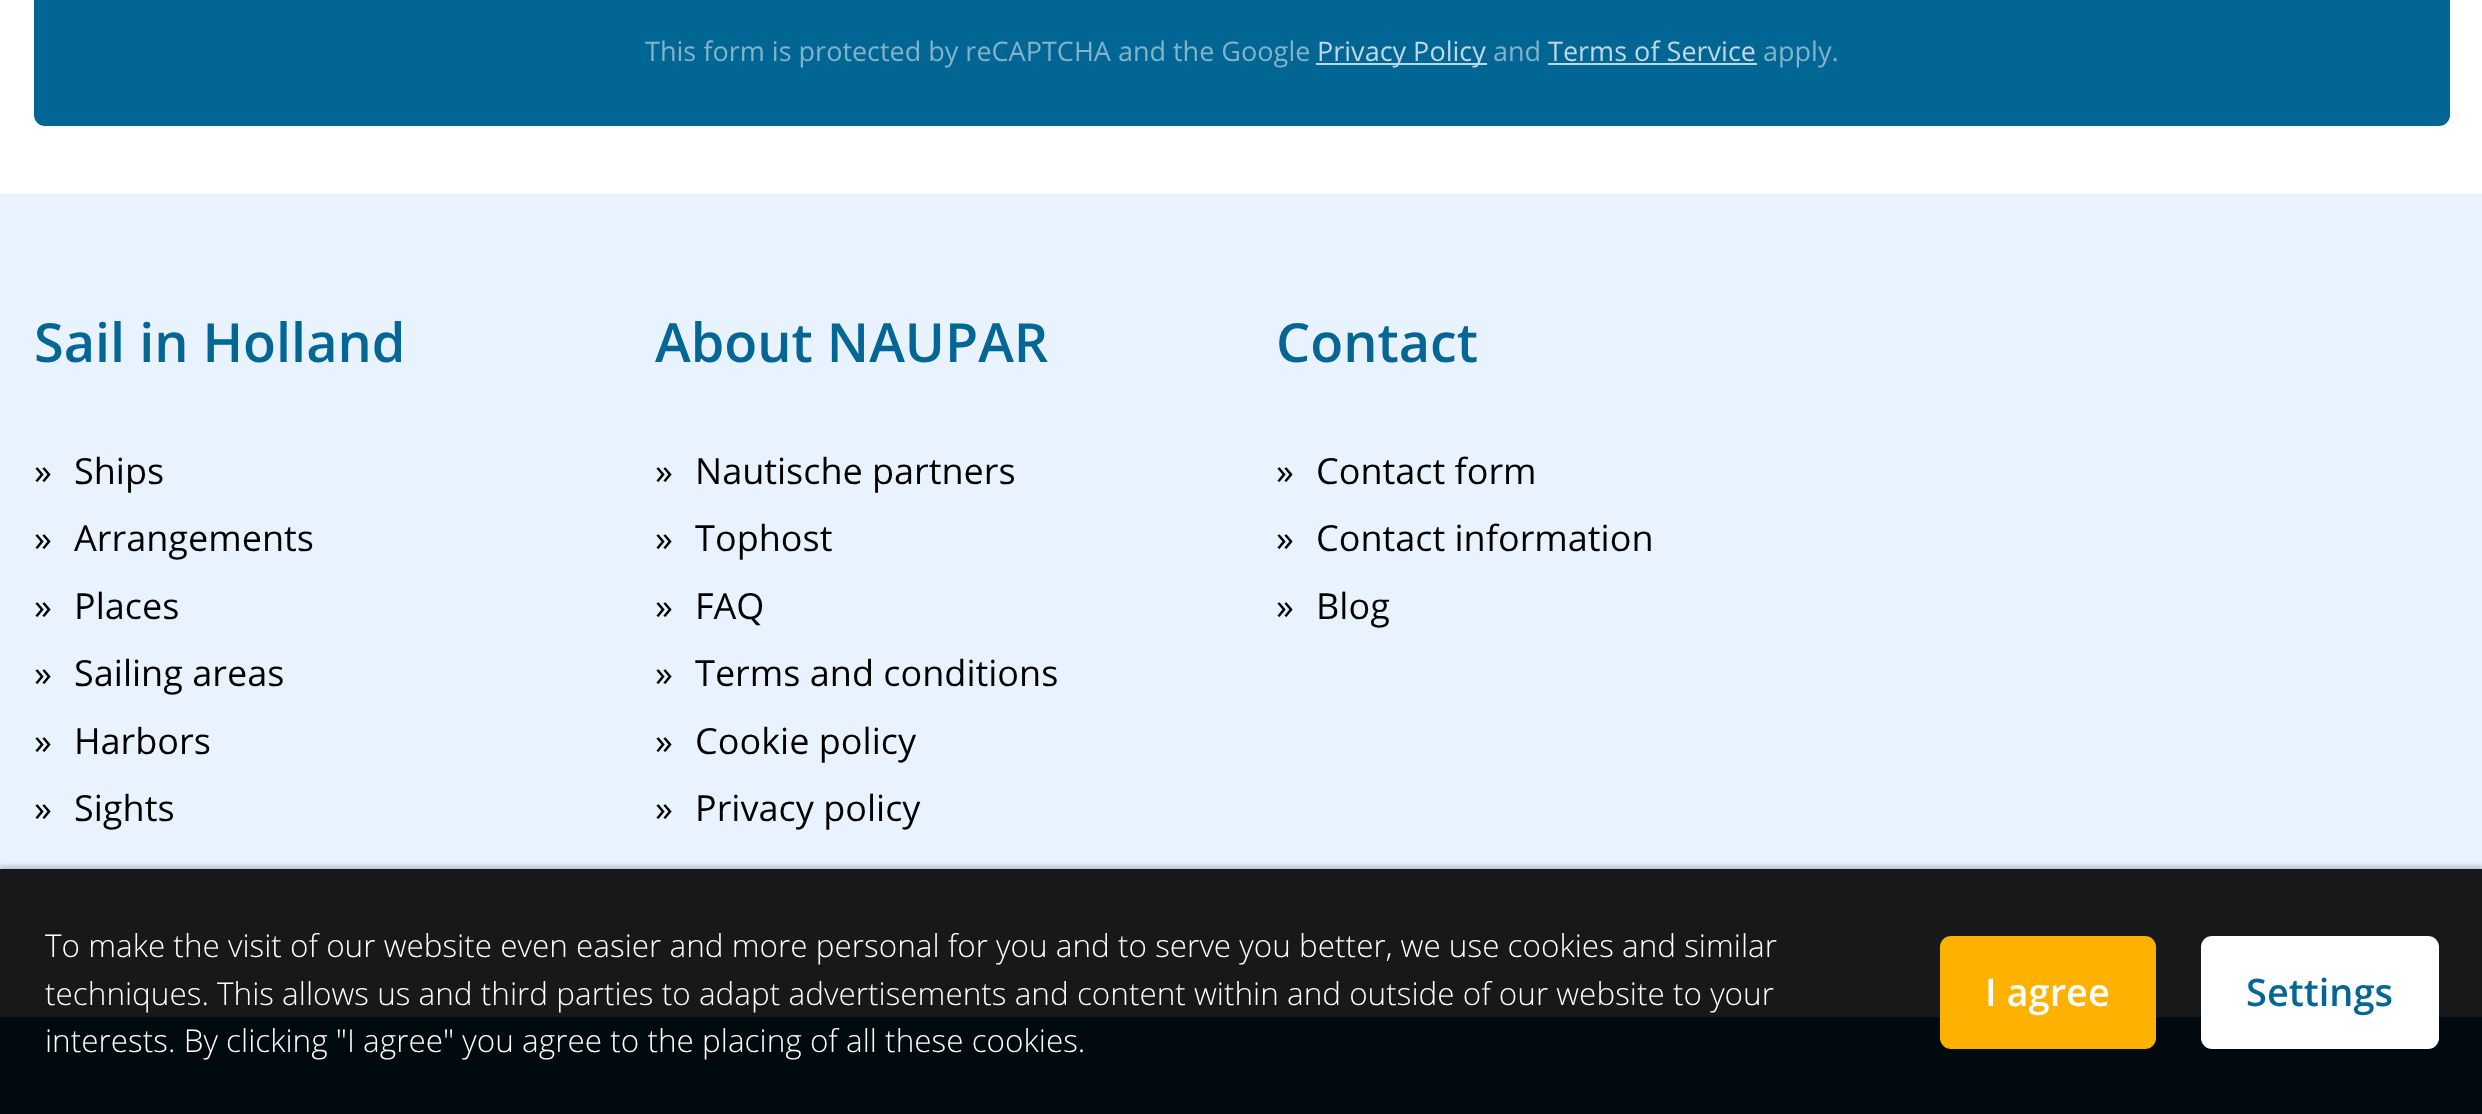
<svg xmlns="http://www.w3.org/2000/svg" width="2482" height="1114">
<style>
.a{font:27px Open Sans;fill:#81b3ca}
.b{font:27px Open Sans;fill:#bed8e4}
.c{font:600 54px Open Sans;fill:#036695}
.d{font:36px Open Sans;fill:#000}
.e{font:300 31.5px Open Sans;fill:#fff}
.f{font:600 38px Open Sans;fill:#fff}
.g{font:600 38px Open Sans;fill:#036695}
</style>
<defs>
<clipPath id="clip1"><path d="M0 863h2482v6H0z"/></clipPath>
</defs>
<rect width="100%" height="100%" fill="#fff"/>
<rect fill="#026695" x="34" y="-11" width="2416" height="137" rx="11"/>
<path fill="#bdd7e3" d="M1316 63h171v2H1316z"/>
<path fill="#bdd7e3" d="M1548 63h209v2H1548z"/>
<path fill="#e9f3ff" d="M0 194h2482v823H0z"/>
<path fill="#036695" d="M0 1017h2482v97H0z"/>
<g clip-path="url(#clip1)">
<path fill="#00000033" filter="blur(2px)" d="M0 866h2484v248H0z"/>
</g>
<path fill="#000000e6" d="M0 869h2482v245H0z"/>
<rect fill="#ffb100" x="1940" y="936" width="216" height="113" rx="11"/>
<rect fill="#fff" x="2201" y="936" width="238" height="113" rx="11"/>
<text class="a" x="645" y="61">This form is protected by reCAPTCHA and the Google</text>
<text class="b" x="1317" y="61">Privacy Policy</text>
<text class="a" x="1493" y="61">and</text>
<text class="b" x="1548" y="61">Terms of Service</text>
<text class="a" x="1763" y="61">apply.</text>
<text class="c" x="34" y="362">Sail in Holland</text>
<text class="d" x="34" y="484">»</text>
<text class="d" x="74" y="484">Ships</text>
<text class="d" x="34" y="551">»</text>
<text class="d" x="74" y="551">Arrangements</text>
<text class="d" x="34" y="619">»</text>
<text class="d" x="74" y="619">Places</text>
<text class="d" x="34" y="686">»</text>
<text class="d" x="74" y="686">Sailing areas</text>
<text class="d" x="34" y="754">»</text>
<text class="d" x="74" y="754">Harbors</text>
<text class="d" x="34" y="821">»</text>
<text class="d" x="74" y="821">Sights</text>
<text class="c" x="655" y="362">About NAUPAR</text>
<text class="d" x="655" y="484">»</text>
<text class="d" x="695" y="484">Nautische partners</text>
<text class="d" x="655" y="551">»</text>
<text class="d" x="695" y="551">Tophost</text>
<text class="d" x="655" y="619">»</text>
<text class="d" x="695" y="619">FAQ</text>
<text class="d" x="655" y="686">»</text>
<text class="d" x="695" y="686">Terms and conditions</text>
<text class="d" x="655" y="754">»</text>
<text class="d" x="695" y="754">Cookie policy</text>
<text class="d" x="655" y="821">»</text>
<text class="d" x="695" y="821">Privacy policy</text>
<text class="c" x="1276" y="362">Contact</text>
<text class="d" x="1276" y="484">»</text>
<text class="d" x="1316" y="484">Contact form</text>
<text class="d" x="1276" y="551">»</text>
<text class="d" x="1316" y="551">Contact information</text>
<text class="d" x="1276" y="619">»</text>
<text class="d" x="1316" y="619">Blog</text>
<text class="e" x="45" y="957">To make the visit of our website even easier and more personal for you and to serve you better, we use cookies and similar</text>
<text class="e" x="45" y="1005">techniques. This allows us and third parties to adapt advertisements and content within and outside of our website to your</text>
<text class="e" x="45" y="1052">interests. By clicking "I agree" you agree to the placing of all these cookies.</text>
<text class="f" x="1985" y="1006">I agree</text>
<text class="g" x="2246" y="1006">Settings</text>
</svg>
